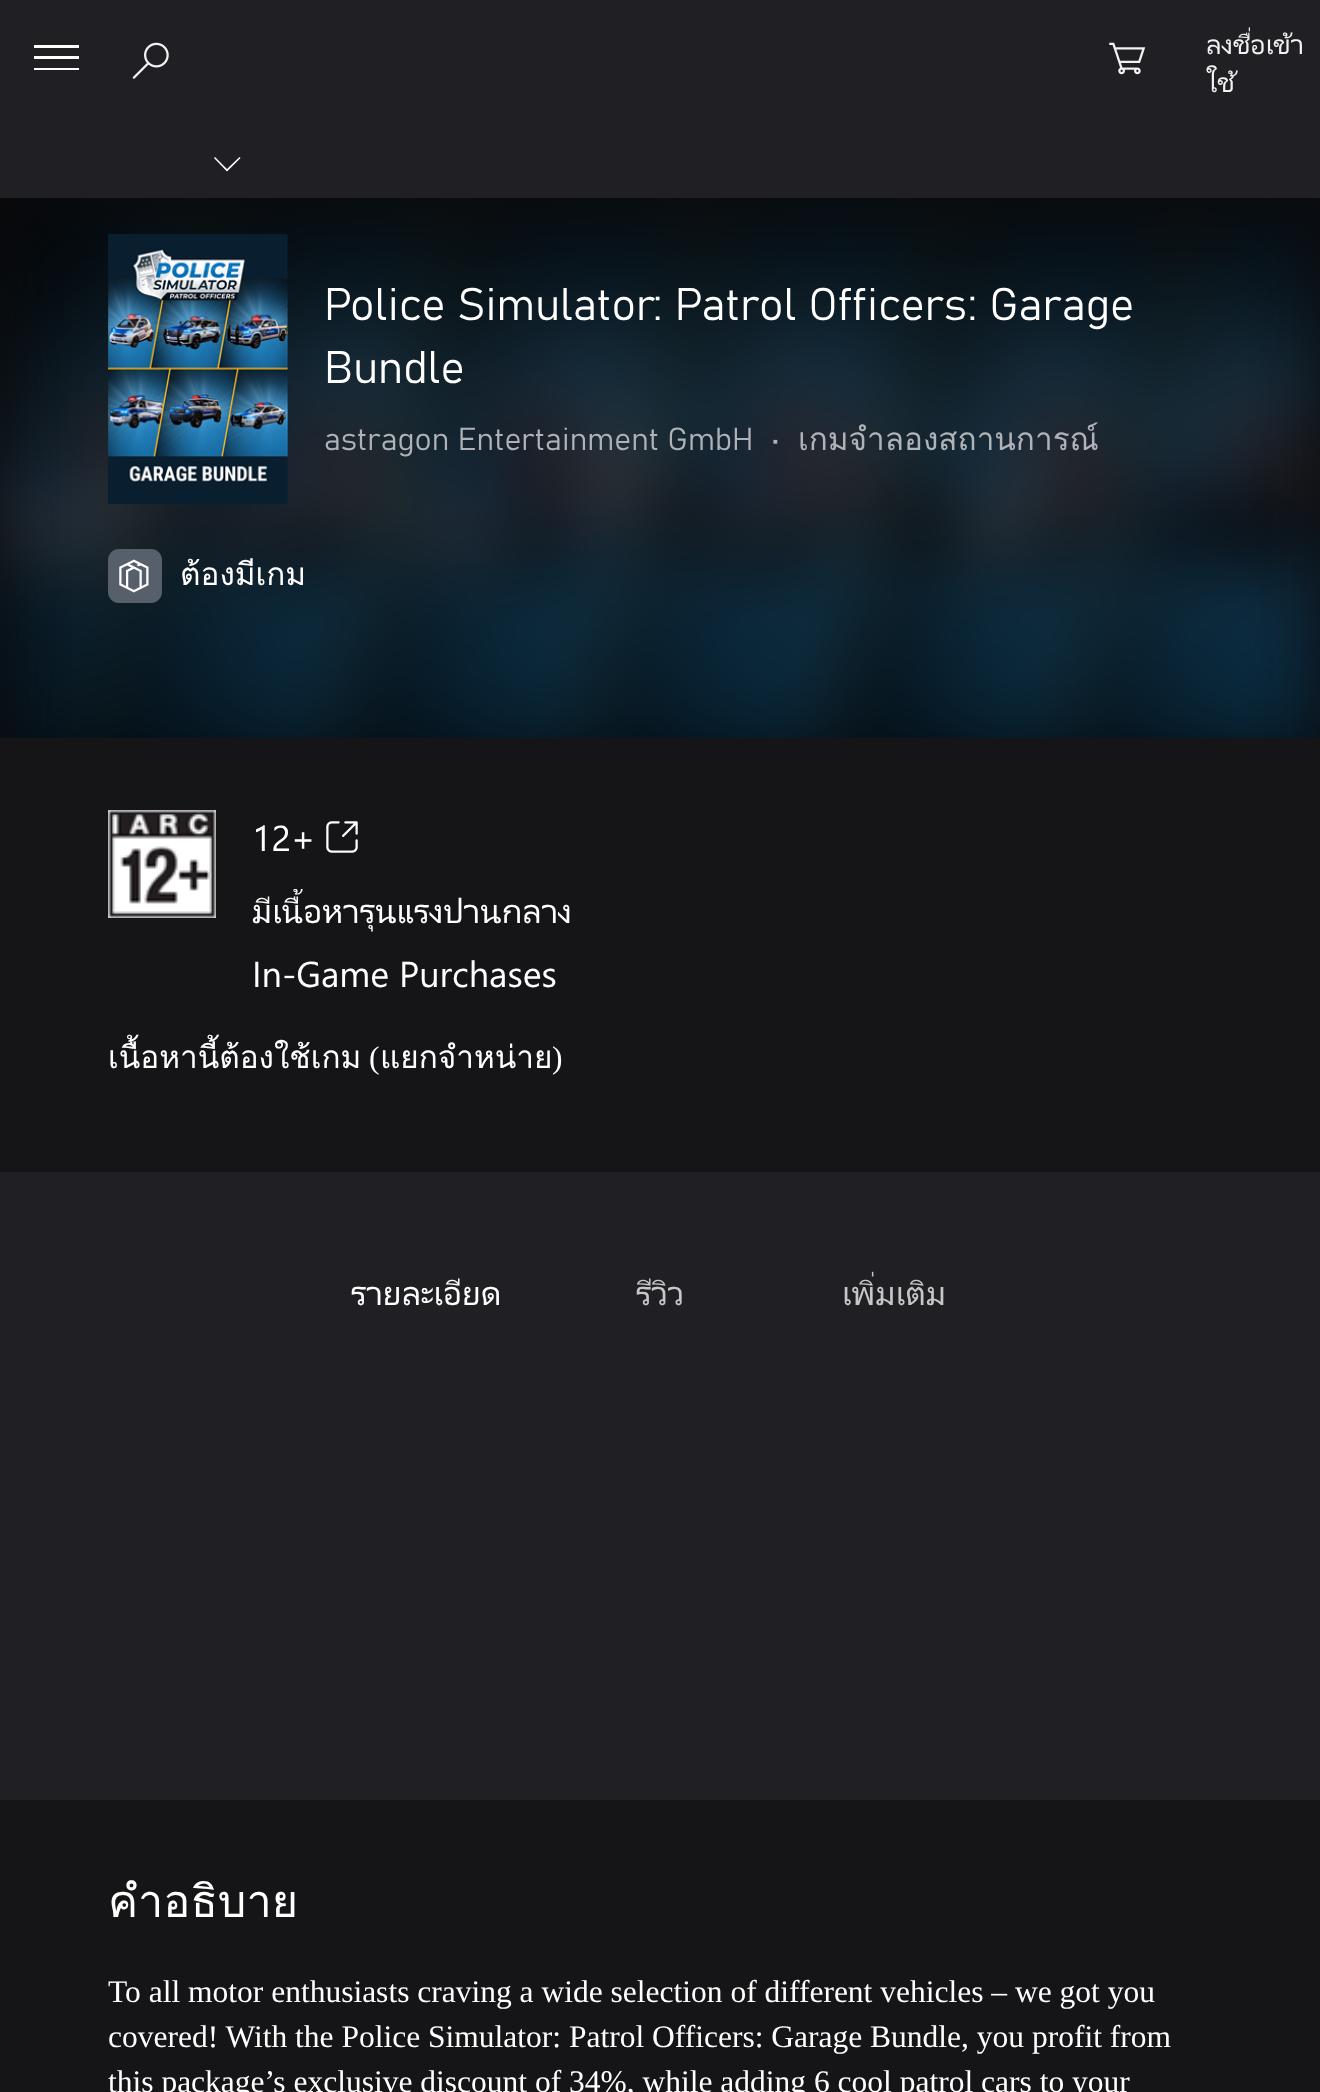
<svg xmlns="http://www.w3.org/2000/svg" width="1320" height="2092">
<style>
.a{font:29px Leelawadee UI;fill:#f2f2f2}
.b{font:300 45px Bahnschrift;fill:#fff}
.c{font:300 31.5px Bahnschrift;fill:#afb3b7}
.d{font:31.5px Loma;fill:#afb3b7}
.e{font:31.5px Loma;fill:#fff}
.f{font:36px Segoe UI;fill:#fff}
.g{font:36px Leelawadee UI;fill:#fff}
.h{font:31.5px Liberation Serif;fill:#fff}
.i{font:36px Leelawadee UI;fill:#c7c7c8}
.j{font:45px Loma;fill:#fff}
</style>
<rect width="100%" height="100%" fill="#201f24"/>
<path fill="#0c0b0d" d="M0 198h1320v540H0z"/>
<path fill="#fff" d="M79 48h-45v-3h45zm0 22h-45v-2h45zm0-11h-45v-3h45z"/>
<image href="1.png" x="132" y="42" width="37" height="37"/>
<image href="2.png" x="1109" y="42" width="37" height="33"/>
<path fill="#fff" d="M239.5 157l1 1l-13.5 13.5l-13-13.5l1-1l12 12z"/>
<image href="3.png" x="0" y="198" width="1320" height="540"/>
<image href="4.png" x="108" y="234" width="180" height="270"/>
<rect fill="#575f6b" x="108" y="549" width="54" height="54" rx="11"/>
<image href="5.png" x="119" y="559" width="30" height="34"/>
<path fill="#151517" d="M0 738h1320v434H0z"/>
<image href="6.png" x="108" y="810" width="108" height="108"/>
<image href="7.png" x="326" y="821" width="32" height="32"/>
<path fill="#151517" d="M0 1800h1320v292H0z"/>
<text class="a" x="1206" y="54">ลงชื่อเข้า</text>
<text class="a" x="1206" y="92">ใช้</text>
<text class="b" x="324" y="320">Police Simulator: Patrol Officers: Garage</text>
<text class="b" x="324" y="383">Bundle</text>
<text class="c" x="324" y="450">astragon Entertainment GmbH</text>
<text class="c" x="771" y="450">•</text>
<text class="d" x="798" y="450">เกมจำลองสถานการณ์</text>
<text class="e" x="180" y="585">ต้องมีเกม</text>
<text class="f" x="252" y="851">12+</text>
<text class="g" x="252" y="923">มีเนื้อหารุนแรงปานกลาง</text>
<text class="f" x="252" y="987">In-Game Purchases</text>
<text class="e" x="108" y="1068">เนื้อหานี้ต้องใช้เกม</text>
<text class="h" x="369" y="1068">(</text>
<text class="e" x="380" y="1068">แยกจำหน่าย</text>
<text class="h" x="552" y="1068">)</text>
<text class="g" x="351" y="1305">รายละเอียด</text>
<text class="i" x="636" y="1305">รีวิว</text>
<text class="i" x="842" y="1305">เพิ่มเติม</text>
<text class="j" x="108" y="1917">คำอธิบาย</text>
<text class="h" x="108" y="2002">To all motor enthusiasts craving a wide selection of different vehicles – we got you</text>
<text class="h" x="108" y="2047">covered! With the Police Simulator: Patrol Officers: Garage Bundle, you profit from</text>
<text class="h" x="108" y="2092">this package’s exclusive discount of 34%, while adding 6 cool patrol cars to your</text>
</svg>
